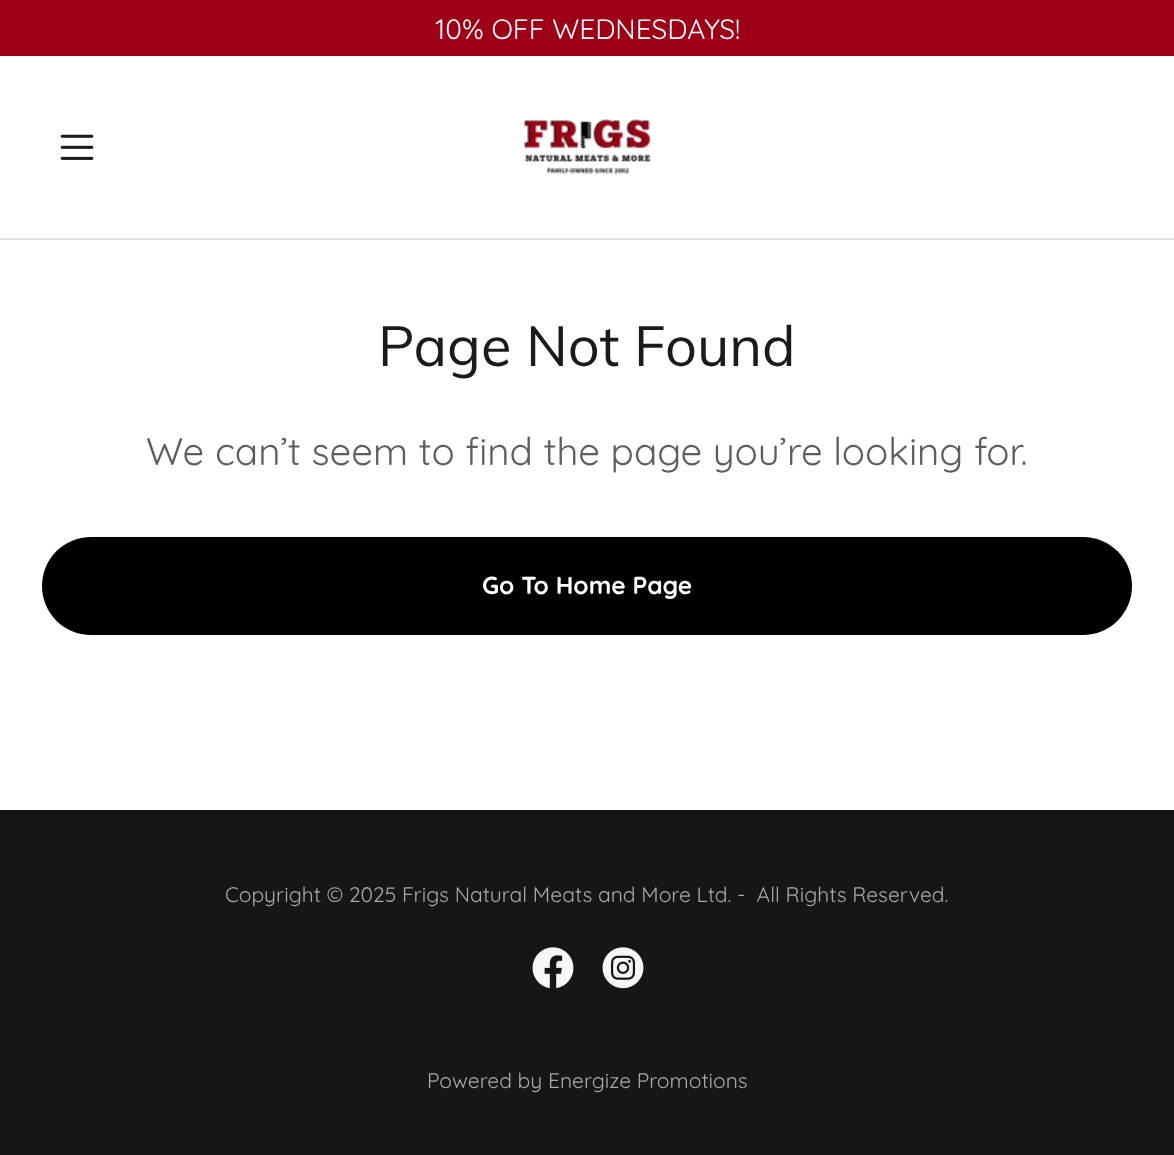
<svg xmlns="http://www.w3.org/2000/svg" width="1174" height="1155">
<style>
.a{font:28px Quicksand;fill:#fff}
.b{font:56px Muli;fill:#1b1b1b}
.c{font:38.5px Quicksand;fill:#5e5e5e}
.d{font:bold 24.5px Quicksand;fill:#fff}
.e{font:21px Quicksand;fill:#a9a9a9}
</style>
<rect width="100%" height="100%" fill="#161616"/>
<path fill="#fff" d="M0 56h1174v182H0z"/>
<path fill="#9d0016" d="M0 0h1174v56H0z"/>
<image href="1.png" x="60" y="134" width="34" height="26"/>
<image href="2.png" x="524" y="119" width="127" height="55"/>
<path fill="#e2e2e2" d="M0 238h1174v2H0z"/>
<path fill="#fff" d="M0 240h1174v570H0z"/>
<rect fill="#000" x="42" y="537" width="1090" height="98" rx="49"/>
<image href="3.png" x="532" y="947" width="42" height="42"/>
<image href="4.png" x="602" y="947" width="42" height="42"/>
<text class="a" x="435" y="39">10% OFF WEDNESDAYS!</text>
<text class="b" x="378" y="366">Page Not Found</text>
<text class="c" x="146" y="465">We can’t seem to find the page you’re looking for.</text>
<text class="d" x="482" y="594">Go To Home Page</text>
<text class="e" xml:space="preserve" x="225" y="902">Copyright © 2025 Frigs Natural Meats and More Ltd. -  All Rights Reserved.</text>
<text class="e" x="427" y="1088">Powered by Energize Promotions</text>
</svg>
